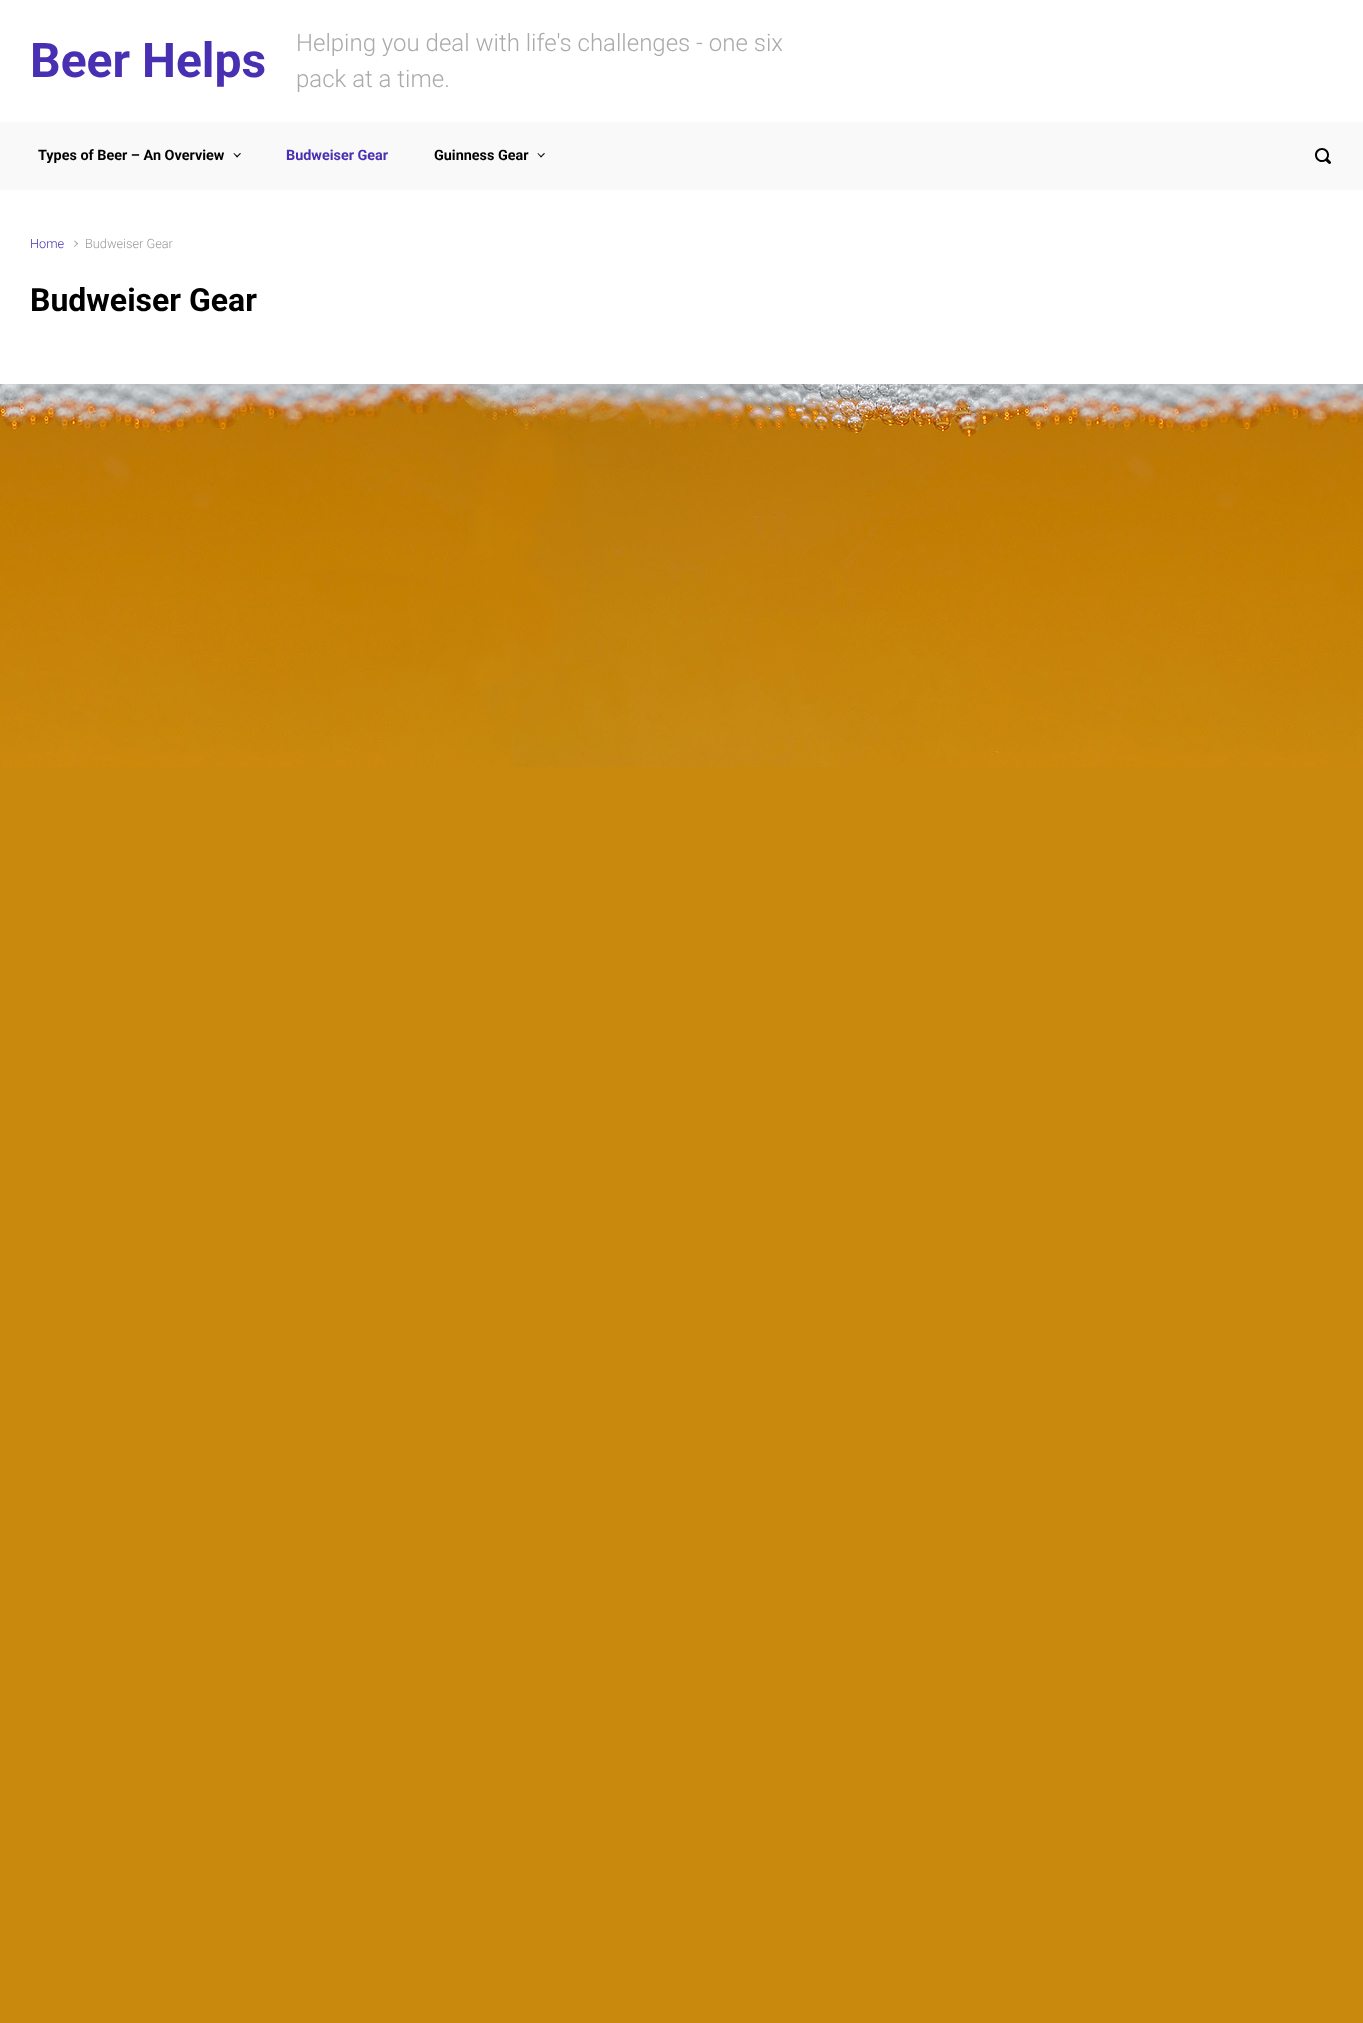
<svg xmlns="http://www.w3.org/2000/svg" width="1363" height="2023">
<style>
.a{font:bold 48px Roboto;fill:#492fb1}
.b{font:300 24px Roboto;fill:#aaa}
.c{font:bold 14.4px Roboto;fill:#000}
.d{font:bold 14.4px Roboto;fill:#492fb1}
.e{font:300 12.75px Roboto;fill:#492fb1}
.f{font:300 12.75px Roboto;fill:#999}
.g{font:bold 32px Roboto;fill:#000}
</style>
<rect width="100%" height="100%" fill="#c9890d"/>
<image href="1.png" x="0" y="384" width="1363" height="383"/>
<path fill="#f9f9f9" d="M0 122h1363v68H0z"/>
<path fill="#fff" d="M0 0h1363v122H0z"/>
<path fill="#000" d="M240 153l1 .5l-4 4l-.5-1z"/>
<path fill="#000" d="M234 153l4 3.5l-1 1l-3.5-4z"/>
<path fill="#000" d="M544 153l1 .5l-4 4l-.5-1z"/>
<path fill="#000" d="M538 153l3.5 3.5l-.5 1l-3.5-4z"/>
<image href="2.png" x="1315" y="148" width="16" height="16"/>
<path fill="#fff" d="M0 190h1363v194H0z"/>
<path fill="#999" d="M74 241l.5-.5l3.5 3l-.5 1z"/>
<path fill="#999" d="M74 246.5l3.5-3.5l.5 .5l-3.5 3.5z"/>
<text class="a" x="30" y="77">Beer Helps</text>
<text class="b" x="296" y="51">Helping you deal with life's challenges - one six</text>
<text class="b" x="296" y="87">pack at a time.</text>
<text class="c" x="38" y="160">Types of Beer – An Overview</text>
<text class="d" x="286" y="160">Budweiser Gear</text>
<text class="c" x="434" y="160">Guinness Gear</text>
<text class="e" x="30" y="248">Home</text>
<text class="f" x="85" y="248">Budweiser Gear</text>
<text class="g" x="30" y="311">Budweiser Gear</text>
</svg>
